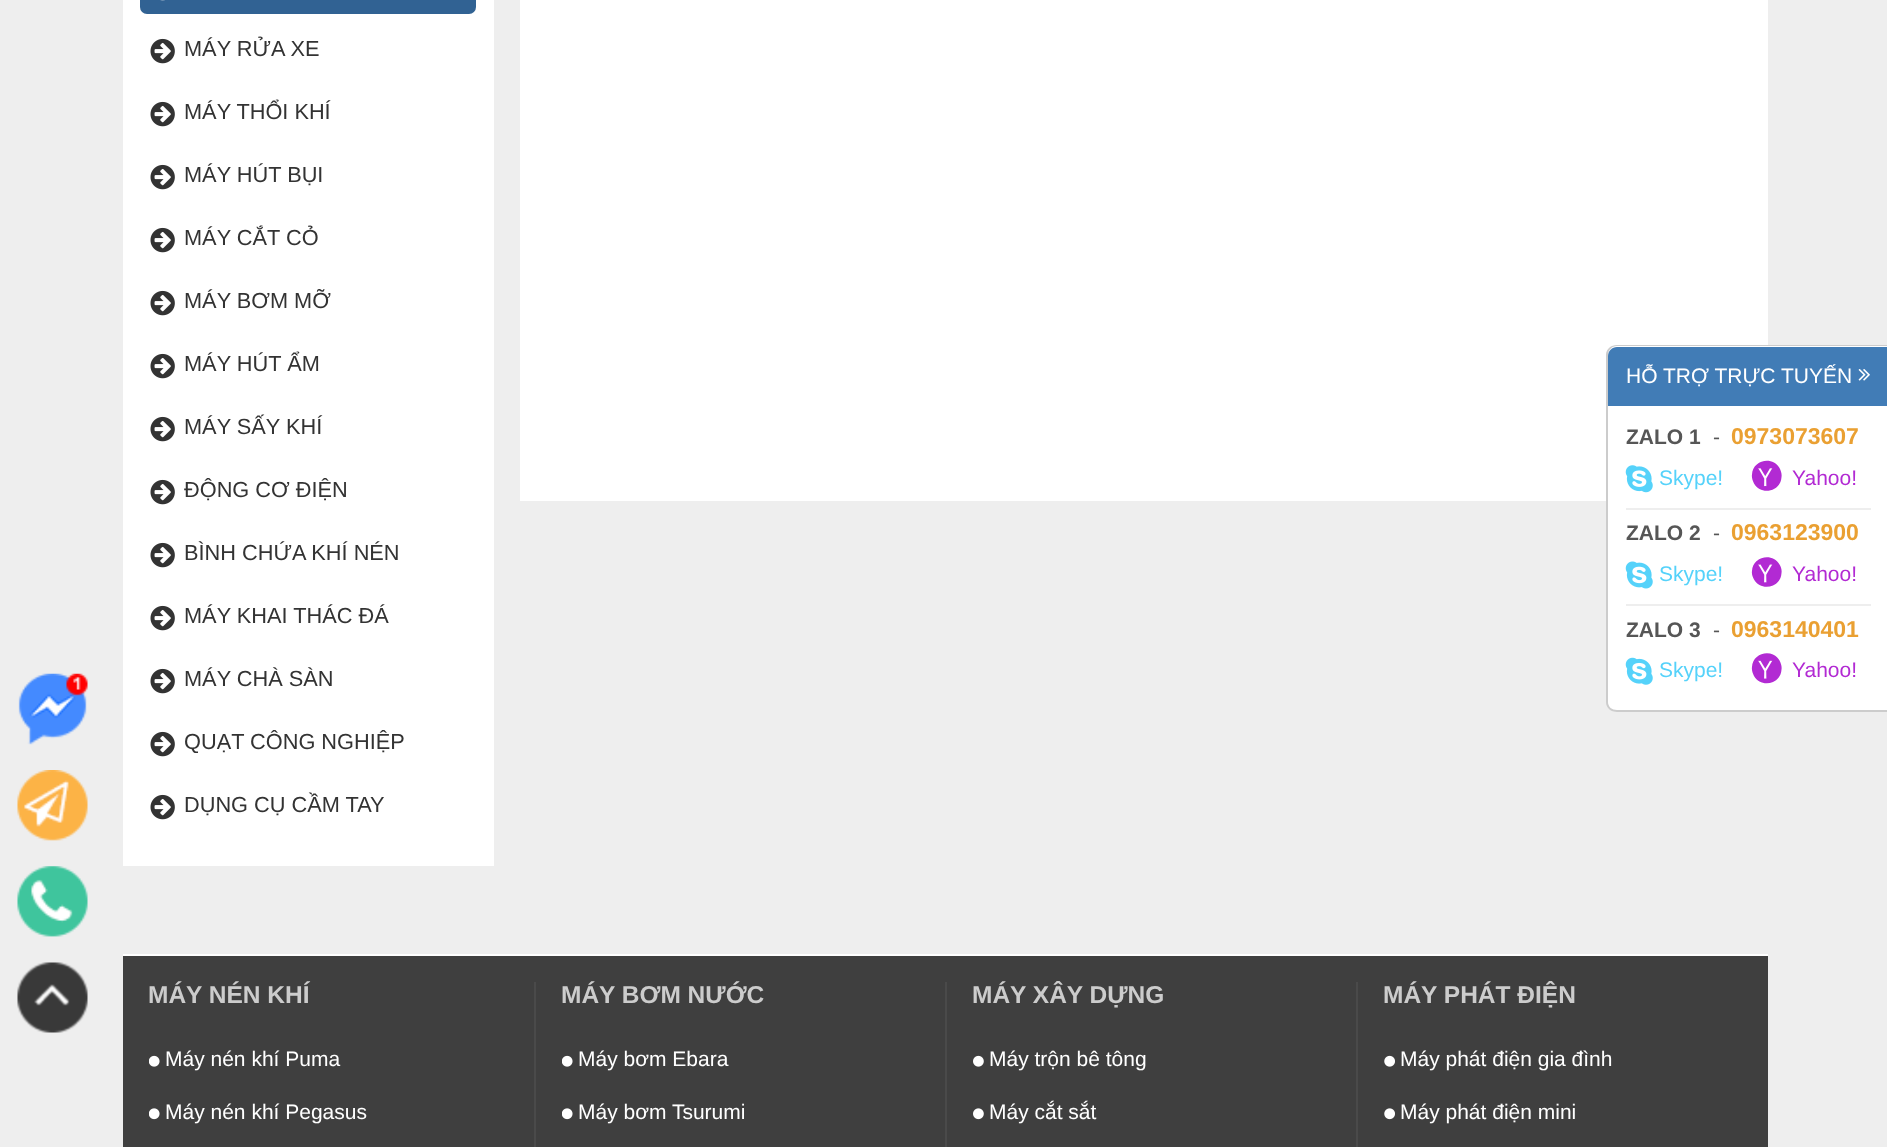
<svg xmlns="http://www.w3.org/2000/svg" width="1887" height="1147">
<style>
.a{font:21.75px Liberation Sans;fill:#333}
.b{font:bold 24.5px Liberation Sans;fill:#ccc}
.c{font:21px Liberation Sans;fill:#fff}
.d{font:bold 21px Liberation Sans;fill:#565656}
.e{font:21px Liberation Sans;fill:#565656}
.f{font:bold 23px Liberation Sans;fill:#eaa032}
.g{font:21px Liberation Sans;fill:#55d2fa}
.h{font:21px Liberation Sans;fill:#b22ad3}
</style>
<rect width="100%" height="100%" fill="#eee"/>
<path fill="#fff" d="M123 0h371v866H123z"/>
<rect fill="#316293" x="140" y="-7" width="336" height="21" rx="7"/>
<image href="1.png" x="160" y="0" width="5" height="1"/>
<image href="2.png" x="150" y="38" width="25" height="26"/>
<image href="2.png" x="150" y="101" width="25" height="26"/>
<image href="2.png" x="150" y="164" width="25" height="26"/>
<image href="2.png" x="150" y="227" width="25" height="26"/>
<image href="2.png" x="150" y="290" width="25" height="26"/>
<image href="2.png" x="150" y="353" width="25" height="26"/>
<image href="2.png" x="150" y="416" width="25" height="26"/>
<image href="2.png" x="150" y="479" width="25" height="26"/>
<image href="2.png" x="150" y="542" width="25" height="26"/>
<image href="2.png" x="150" y="605" width="25" height="26"/>
<image href="2.png" x="150" y="668" width="25" height="26"/>
<image href="2.png" x="150" y="731" width="25" height="26"/>
<image href="2.png" x="150" y="794" width="25" height="26"/>
<path fill="#fff" d="M520 0h1248v501H520z"/>
<path fill="#3f3f3f" d="M123 956h1645v191H123z"/>
<path fill="#fff" d="M123 954h1645v2H123z"/>
<image href="3.png" x="149" y="1055" width="11" height="12"/>
<image href="4.png" x="149" y="1108" width="11" height="12"/>
<path fill="#4a4a4a" d="M534 982h2v165H534z"/>
<image href="3.png" x="562" y="1055" width="11" height="12"/>
<image href="4.png" x="562" y="1108" width="11" height="12"/>
<path fill="#4a4a4a" d="M945 982h2v165H945z"/>
<image href="5.png" x="973" y="1055" width="11" height="12"/>
<image href="6.png" x="973" y="1108" width="11" height="12"/>
<path fill="#4a4a4a" d="M1356 982h2v165H1356z"/>
<image href="7.png" x="1384" y="1055" width="11" height="12"/>
<image href="8.png" x="1384" y="1108" width="11" height="12"/>
<path fill="#fff" d="M1618 345h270v367h-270c-6 0-11-5-11-11v-345c0-6 5-11 11-11z"/>
<path fill="#ccc" fill-rule="evenodd" d="M1617 345h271v367h-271c-6 0-11-4-11-10v-347c0-6 5-10 11-10zm0 1h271v364h-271c-5 0-9-3-9-8v-347c0-5 4-9 9-9z"/>
<path fill="#417cb6" d="M1617 347h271v59h-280v-50c0-5 4-9 9-9z"/>
<image href="9.png" x="1858" y="369" width="12" height="12"/>
<image href="10.png" x="1625" y="465" width="28" height="28"/>
<path fill="#b22ad3" d="M1779.5 468c1.5 3 2.5 6 2 9c-.5 14.5-20.5 19-27.5 6.5c-1.5-3-2.5-6-2-9c.5-14.5 20.5-19 27.5-6.5z"/>
<image href="11.png" x="1758" y="468" width="15" height="19"/>
<path fill="#eee" d="M1626 508h245v2H1626z"/>
<image href="12.png" x="1625" y="561" width="28" height="28"/>
<path fill="#b22ad3" d="M1779.5 564.5c1.5 2.5 2.5 5.5 2 8.5c-.5 14.5-20.5 19-27.5 6.5c-1.5-2.5-2.5-5.5-2-8.5c.5-14.5 20.5-19 27.5-6.5z"/>
<image href="13.png" x="1758" y="564" width="15" height="19"/>
<path fill="#eee" d="M1626 604h245v2H1626z"/>
<image href="14.png" x="1625" y="657" width="28" height="28"/>
<path fill="#b22ad3" d="M1779.5 660.5c1.5 3 2.5 6 2 9c-.5 14.5-20.5 19-27.5 6.5c-1.5-3-2.5-6-2-9c.5-14.5 20.5-19 27.5-6.5z"/>
<image href="15.png" x="1758" y="660" width="15" height="19"/>
<image href="16.png" x="18" y="673" width="70" height="72"/>
<image href="17.png" x="17" y="770" width="71" height="71"/>
<image href="18.png" x="17" y="866" width="71" height="71"/>
<image href="19.png" x="17" y="962" width="71" height="71"/>
<text class="a" x="184" y="56">MÁY RỬA XE</text>
<text class="a" x="184" y="119">MÁY THỔI KHÍ</text>
<text class="a" x="184" y="182">MÁY HÚT BỤI</text>
<text class="a" x="184" y="245">MÁY CẮT CỎ</text>
<text class="a" x="184" y="308">MÁY BƠM MỠ</text>
<text class="a" x="184" y="371">MÁY HÚT ẨM</text>
<text class="a" x="184" y="434">MÁY SẤY KHÍ</text>
<text class="a" x="184" y="497">ĐỘNG CƠ ĐIỆN</text>
<text class="a" x="184" y="560">BÌNH CHỨA KHÍ NÉN</text>
<text class="a" x="184" y="623">MÁY KHAI THÁC ĐÁ</text>
<text class="a" x="184" y="686">MÁY CHÀ SÀN</text>
<text class="a" x="184" y="749">QUẠT CÔNG NGHIỆP</text>
<text class="a" x="184" y="812">DỤNG CỤ CẦM TAY</text>
<text class="b" x="148" y="1003">MÁY NÉN KHÍ</text>
<text class="c" x="165" y="1066">Máy nén khí Puma</text>
<text class="c" x="165" y="1119">Máy nén khí Pegasus</text>
<text class="b" x="561" y="1003">MÁY BƠM NƯỚC</text>
<text class="c" x="578" y="1066">Máy bơm Ebara</text>
<text class="c" x="578" y="1119">Máy bơm Tsurumi</text>
<text class="b" x="972" y="1003">MÁY XÂY DỰNG</text>
<text class="c" x="989" y="1066">Máy trộn bê tông</text>
<text class="c" x="989" y="1119">Máy cắt sắt</text>
<text class="b" x="1383" y="1003">MÁY PHÁT ĐIỆN</text>
<text class="c" x="1400" y="1066">Máy phát điện gia đình</text>
<text class="c" x="1400" y="1119">Máy phát điện mini</text>
<text class="c" x="1626" y="383">HỖ TRỢ TRỰC TUYẾN</text>
<text class="d" x="1626" y="444">ZALO 1</text>
<text class="e" x="1713" y="444">-</text>
<text class="f" x="1731" y="444">0973073607</text>
<text class="g" x="1659" y="485">Skype!</text>
<text class="h" x="1792" y="485">Yahoo!</text>
<text class="d" x="1626" y="540">ZALO 2</text>
<text class="e" x="1713" y="540">-</text>
<text class="f" x="1731" y="540">0963123900</text>
<text class="g" x="1659" y="581">Skype!</text>
<text class="h" x="1792" y="581">Yahoo!</text>
<text class="d" x="1626" y="637">ZALO 3</text>
<text class="e" x="1713" y="637">-</text>
<text class="f" x="1731" y="637">0963140401</text>
<text class="g" x="1659" y="677">Skype!</text>
<text class="h" x="1792" y="677">Yahoo!</text>
</svg>
